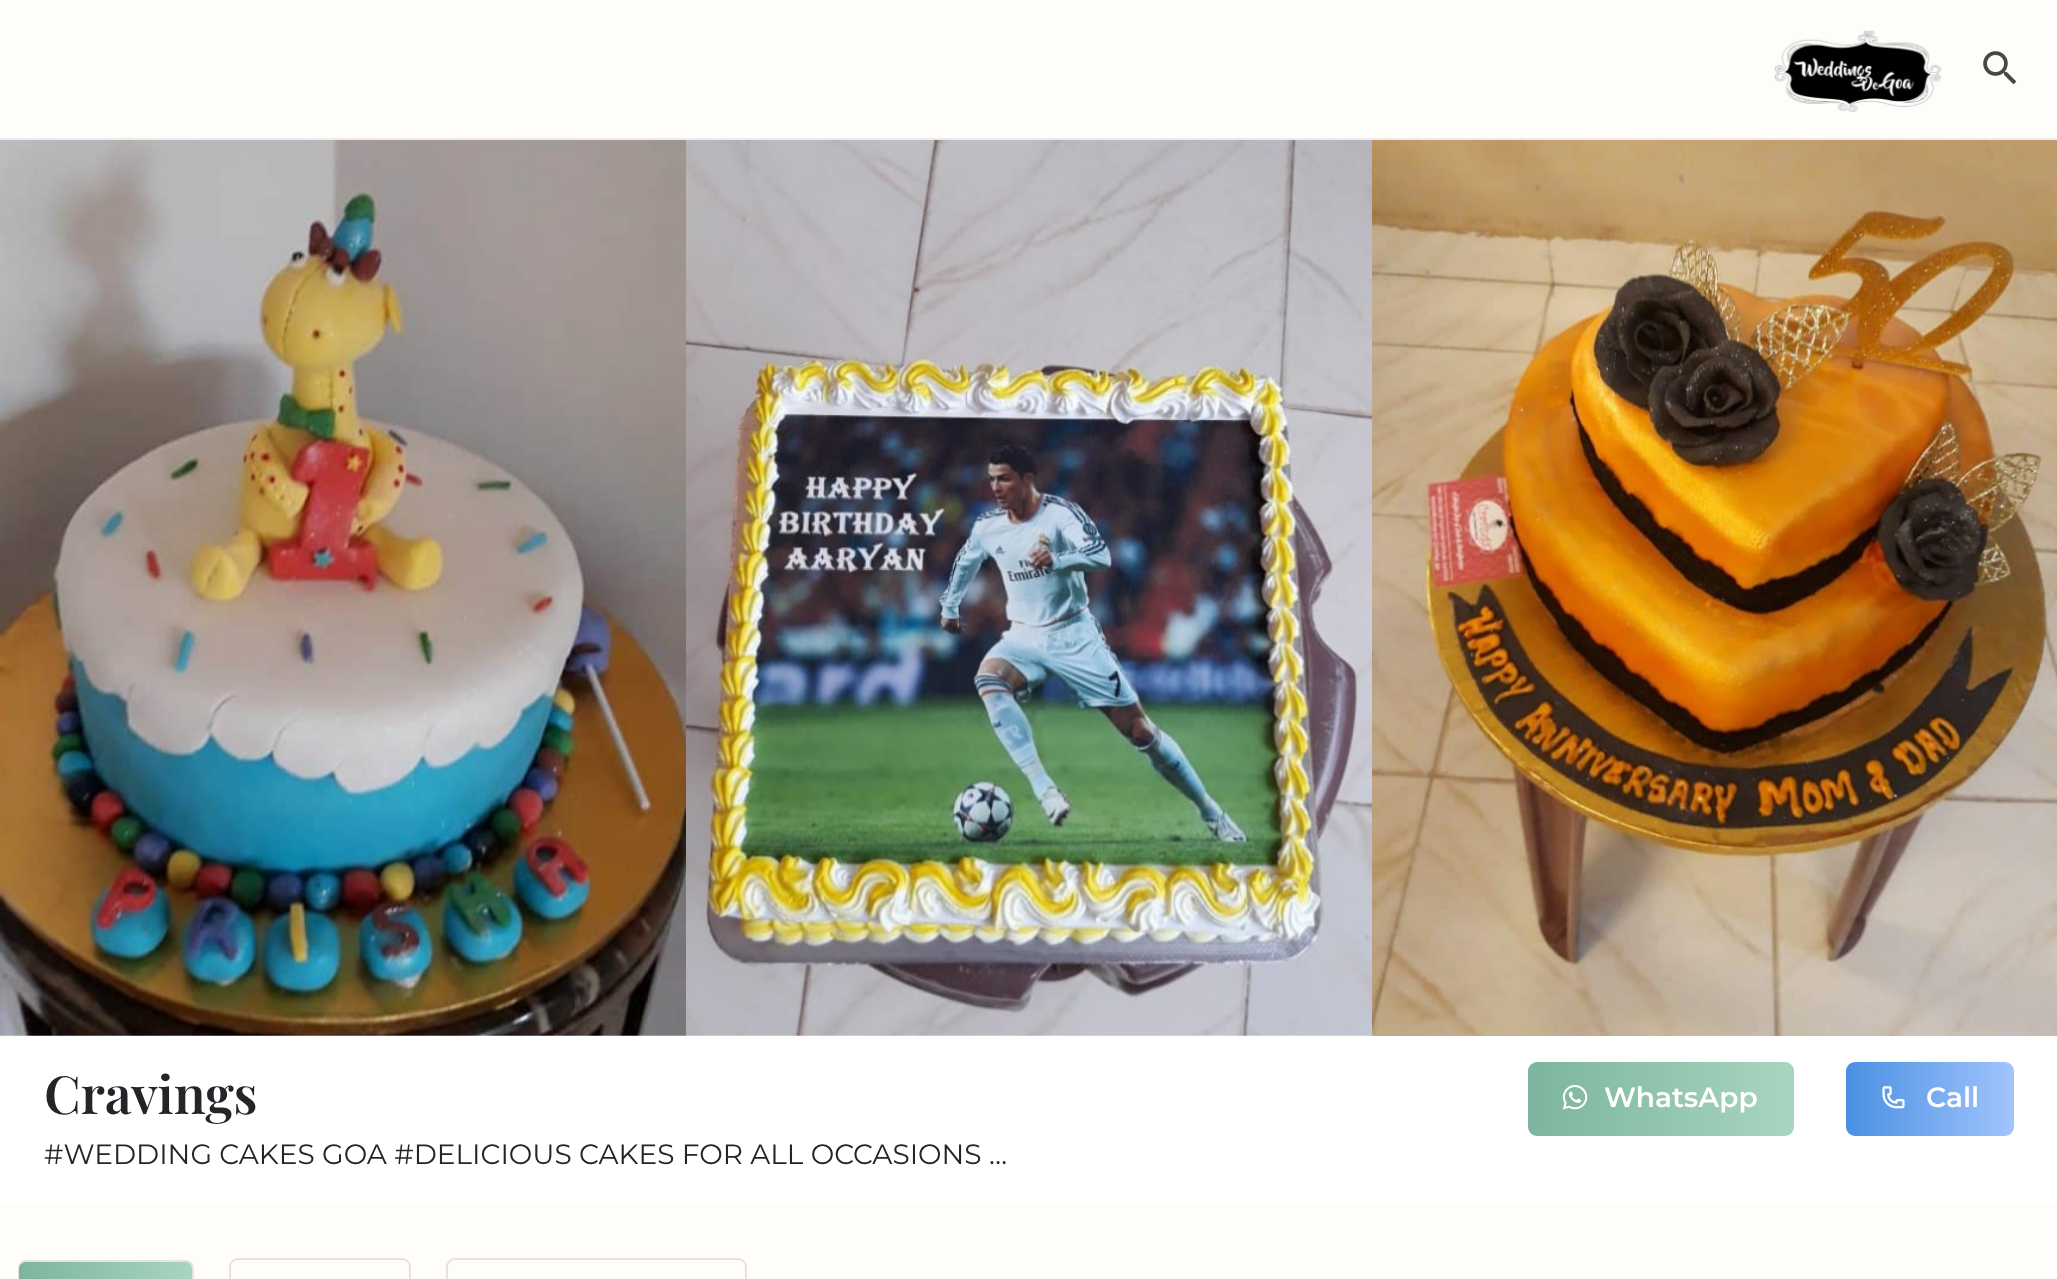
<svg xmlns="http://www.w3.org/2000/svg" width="2057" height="1279">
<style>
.a{font:600 52.5px Playfair Display;fill:#242429}
.b{font:28px Montserrat;fill:#242429}
.c{font:600 28px Montserrat;fill:#fff}
</style>
<defs>
<linearGradient id="g1" gradientUnits="userSpaceOnUse" x1="1528" y1="1099" x2="1794" y2="1099"><stop offset="0" stop-color="#7cb59e"/><stop offset="1" stop-color="#a8d5c0"/></linearGradient>
<linearGradient id="g2" gradientUnits="userSpaceOnUse" x1="1846" y1="1099" x2="2014" y2="1099"><stop offset="0" stop-color="#4a90e2"/><stop offset="1" stop-color="#a1c4fd"/></linearGradient>
<clipPath id="clip1"><rect x="18" y="1260" width="176" height="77" rx="9"/></clipPath>
<linearGradient id="g3" gradientUnits="userSpaceOnUse" x1="19" y1="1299" x2="193" y2="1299"><stop offset="0" stop-color="#7cb59e"/><stop offset="1" stop-color="#a8d5c0"/></linearGradient>
</defs>
<rect width="100%" height="100%" fill="#fffdf9"/>
<image href="1.png" x="1774" y="30" width="167" height="82"/>
<image href="2.png" x="1983" y="51" width="34" height="34"/>
<path fill="#ebebeb" d="M0 138h2057v2H0z"/>
<image href="3.png" x="0" y="140" width="686" height="896"/>
<image href="4.png" x="686" y="140" width="686" height="896"/>
<image href="5.png" x="1372" y="140" width="685" height="896"/>
<path fill="#fff" d="M0 1036h2057v168H0z"/>
<rect fill="url(#g1)" x="1528" y="1062" width="266" height="74" rx="9"/>
<image href="6.png" x="1562" y="1085" width="26" height="25"/>
<rect fill="url(#g2)" x="1846" y="1062" width="168" height="74" rx="9"/>
<image href="7.png" x="1882" y="1086" width="23" height="23"/>
<g clip-path="url(#clip1)">
<path fill="url(#g3)" d="M19 1260h174v19H19z"/>
</g>
<path fill="#e9e4d8" fill-rule="evenodd" d="M26 1260h160c4 0 8 4 8 9v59c0 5-4 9-8 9h-160c-5 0-8-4-8-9v-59c0-5 3-9 8-9zm0 2h160c3 0 6 3 6 7v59c0 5-3 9-6 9h-160c-4 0-7-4-7-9v-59c0-4 3-7 7-7z"/>
<rect fill="none" stroke="#e9e4d8" stroke-width="2" x="230" y="1259" width="180" height="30" rx="8"/>
<rect fill="none" stroke="#e9e4d8" stroke-width="2" x="447" y="1259" width="299" height="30" rx="8"/>
<text class="a" x="44" y="1114">Cravings</text>
<text class="b" x="44" y="1164">#WEDDING CAKES GOA #DELICIOUS CAKES FOR ALL OCCASIONS …</text>
<text class="c" x="1604" y="1107">WhatsApp</text>
<text class="c" x="1926" y="1107">Call</text>
</svg>
